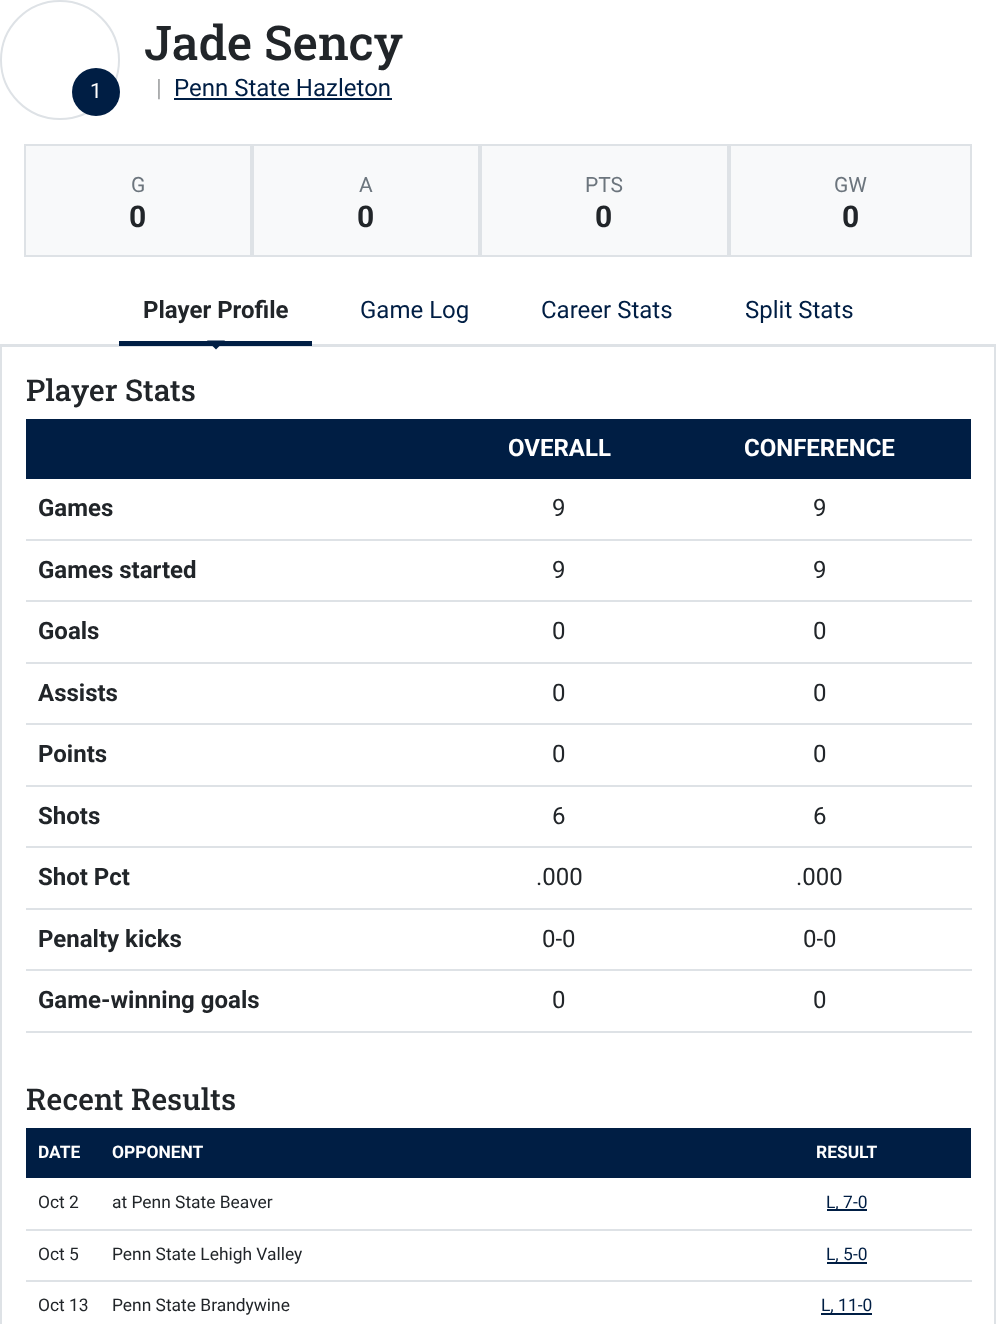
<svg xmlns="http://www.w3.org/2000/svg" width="996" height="1324">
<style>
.a{font:21px Roboto;fill:#fff}
.b{font:500 48px Roboto Slab;fill:#212529}
.c{font:24px Roboto;fill:#a6a8a9}
.d{font:24px Roboto;fill:#001e44}
.e{font:21px Roboto;fill:#6c757d}
.f{font:bold 30px Roboto;fill:#212529}
.g{font:bold 24px Roboto;fill:#212529}
.h{font:500 30px Roboto Slab;fill:#212529}
.i{font:bold 24px Roboto;fill:#fff}
.j{font:24px Roboto;fill:#212529}
.k{font:bold 17.4px Roboto;fill:#fff}
.l{font:17.4px Roboto;fill:#212529}
.m{font:17.4px Roboto;fill:#001e44}
</style>
<rect width="100%" height="100%" fill="#fff"/>
<circle fill="none" stroke="#dee2e6" stroke-width="2" cx="60" cy="60" r="59"/>
<circle fill="#001e44" cx="96" cy="92" r="24"/>
<path fill="#001e44" d="M174 98h218v2H174z"/>
<path fill="#f8f9fa" d="M26 146h944v109H26z"/>
<path fill="none" stroke="#dee2e6" stroke-width="2" d="M25 145h226v111H25z"/>
<path fill="none" stroke="#dee2e6" stroke-width="2" d="M253 145h226v111H253z"/>
<path fill="none" stroke="#dee2e6" stroke-width="2" d="M481 145h247v111H481z"/>
<path fill="none" stroke="#dee2e6" stroke-width="2" d="M730 145h241v111H730z"/>
<path fill="#dee2e6" d="M0 344h996v1H0z"/>
<path fill="none" stroke="#dee2e6" stroke-width="2" d="M1 346h994v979H1z"/>
<path fill="#001e44" d="M119 341h193v5H119z"/>
<path fill="#001e44" d="M207 340.5h18l-9 9z"/>
<path fill="#001e44" d="M26 419h945v60H26z"/>
<path fill="#dee2e6" d="M26 539h946v2H26z"/>
<path fill="#dee2e6" d="M26 600h946v2H26z"/>
<path fill="#dee2e6" d="M26 662h946v2H26z"/>
<path fill="#dee2e6" d="M26 723h946v2H26z"/>
<path fill="#dee2e6" d="M26 785h946v2H26z"/>
<path fill="#dee2e6" d="M26 846h946v2H26z"/>
<path fill="#dee2e6" d="M26 908h946v2H26z"/>
<path fill="#dee2e6" d="M26 969h946v2H26z"/>
<path fill="#dee2e6" d="M26 1031h946v2H26z"/>
<path fill="#001e44" d="M26 1128h945v50H26z"/>
<path fill="#dee2e6" d="M26 1229h946v2H26z"/>
<path fill="#001e44" d="M827 1209h40v2H827z"/>
<path fill="#dee2e6" d="M26 1280h946v2H26z"/>
<path fill="#001e44" d="M827 1262h40v2H827z"/>
<path fill="#001e44" d="M821 1313h51v2H821z"/>
<text class="a" x="90" y="98">1</text>
<text class="b" x="144" y="60">Jade Sency</text>
<text class="c" x="156" y="96">|</text>
<text class="d" x="174" y="96">Penn State Hazleton</text>
<text class="e" x="131" y="192">G</text>
<text class="f" x="129" y="227">0</text>
<text class="e" x="359" y="192">A</text>
<text class="f" x="357" y="227">0</text>
<text class="e" x="585" y="192">PTS</text>
<text class="f" x="595" y="227">0</text>
<text class="e" x="834" y="192">GW</text>
<text class="f" x="842" y="227">0</text>
<text class="g" x="143" y="318">Player Profile</text>
<text class="d" x="360" y="318">Game Log</text>
<text class="d" x="541" y="318">Career Stats</text>
<text class="d" x="745" y="318">Split Stats</text>
<text class="h" x="26" y="401">Player Stats</text>
<text class="i" x="508" y="456">OVERALL</text>
<text class="i" x="744" y="456">CONFERENCE</text>
<text class="g" x="38" y="516">Games</text>
<text class="j" x="552" y="516">9</text>
<text class="j" x="813" y="516">9</text>
<text class="g" x="38" y="578">Games started</text>
<text class="j" x="552" y="578">9</text>
<text class="j" x="813" y="578">9</text>
<text class="g" x="38" y="639">Goals</text>
<text class="j" x="552" y="639">0</text>
<text class="j" x="813" y="639">0</text>
<text class="g" x="38" y="701">Assists</text>
<text class="j" x="552" y="701">0</text>
<text class="j" x="813" y="701">0</text>
<text class="g" x="38" y="762">Points</text>
<text class="j" x="552" y="762">0</text>
<text class="j" x="813" y="762">0</text>
<text class="g" x="38" y="824">Shots</text>
<text class="j" x="552" y="824">6</text>
<text class="j" x="813" y="824">6</text>
<text class="g" x="38" y="885">Shot Pct</text>
<text class="j" x="536" y="885">.000</text>
<text class="j" x="796" y="885">.000</text>
<text class="g" x="38" y="947">Penalty kicks</text>
<text class="j" x="542" y="947">0-0</text>
<text class="j" x="803" y="947">0-0</text>
<text class="g" x="38" y="1008">Game-winning goals</text>
<text class="j" x="552" y="1008">0</text>
<text class="j" x="813" y="1008">0</text>
<text class="h" x="26" y="1110">Recent Results</text>
<text class="k" x="38" y="1158">DATE</text>
<text class="k" x="112" y="1158">OPPONENT</text>
<text class="k" x="816" y="1158">RESULT</text>
<text class="l" x="38" y="1208">Oct 2</text>
<text class="l" x="112" y="1208">at Penn State Beaver</text>
<text class="m" x="826" y="1208">L, 7-0</text>
<text class="l" x="38" y="1260">Oct 5</text>
<text class="l" x="112" y="1260">Penn State Lehigh Valley</text>
<text class="m" x="826" y="1260">L, 5-0</text>
<text class="l" x="38" y="1311">Oct 13</text>
<text class="l" x="112" y="1311">Penn State Brandywine</text>
<text class="m" x="821" y="1311">L, 11-0</text>
</svg>
